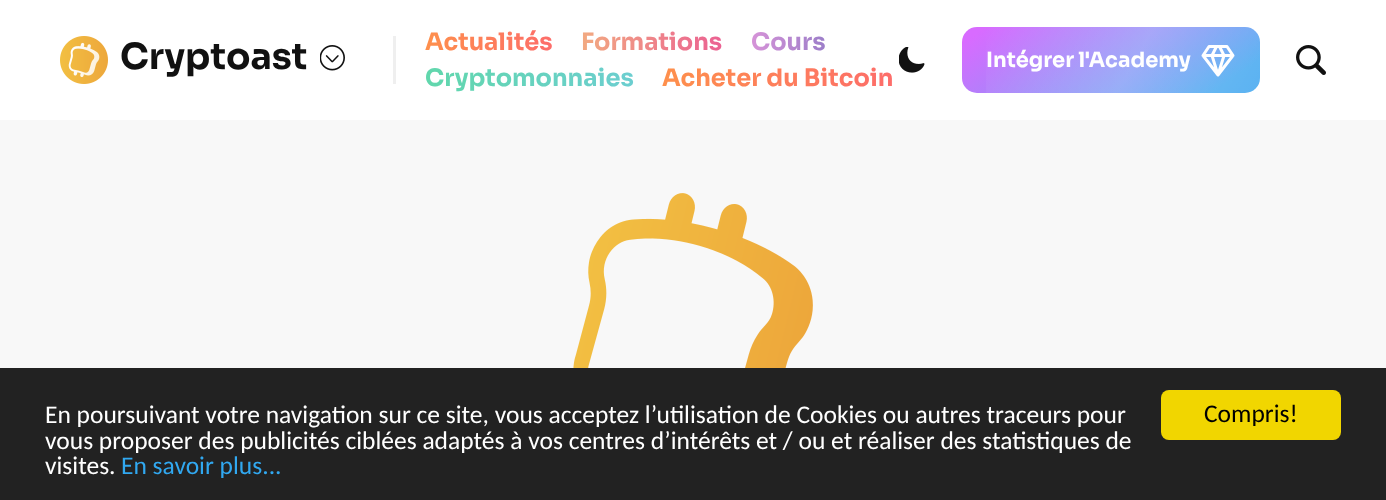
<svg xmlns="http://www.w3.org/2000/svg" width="1386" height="500">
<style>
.a{font:bold 36px Sora;fill:#111}
.b{font:bold 24px Sora;fill:url(#g1)}
.c{font:bold 24px Sora;fill:url(#g2)}
.d{font:bold 24px Sora;fill:url(#g3)}
.e{font:bold 24px Sora;fill:url(#g4)}
.f{font:bold 24px Sora;fill:url(#g5)}
.g{font:bold 21px Sora;fill:#fff}
.h{font:25.5px Carlito;fill:#fff}
.i{font:25.5px Carlito;fill:#31a8f0}
.j{font:25.5px Carlito;fill:#000}
</style>
<defs>
<linearGradient id="g1" gradientUnits="userSpaceOnUse" x1="425" y1="42" x2="552" y2="42"><stop offset="0" stop-color="#fe904c"/><stop offset="1" stop-color="#fd6d6a"/></linearGradient>
<linearGradient id="g2" gradientUnits="userSpaceOnUse" x1="581" y1="42" x2="722" y2="42"><stop offset="0" stop-color="#f2aa81"/><stop offset="1" stop-color="#eb6192"/></linearGradient>
<linearGradient id="g3" gradientUnits="userSpaceOnUse" x1="751" y1="42" x2="826" y2="42"><stop offset="0" stop-color="#d693d8"/><stop offset="1" stop-color="#9c7ec9"/></linearGradient>
<linearGradient id="g4" gradientUnits="userSpaceOnUse" x1="425" y1="78" x2="634" y2="78"><stop offset="0" stop-color="#61d7ac"/><stop offset="1" stop-color="#6cced0"/></linearGradient>
<linearGradient id="g5" gradientUnits="userSpaceOnUse" x1="662" y1="78" x2="894" y2="78"><stop offset="0" stop-color="#fe904c"/><stop offset="1" stop-color="#fd6d6a"/></linearGradient>
<linearGradient id="g6" gradientUnits="userSpaceOnUse" x1="1175" y1="152" x2="1046" y2="-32"><stop offset="0.12" stop-color="#56b0f1"/><stop offset="0.94" stop-color="#d86bff"/></linearGradient>
<linearGradient id="g7" gradientUnits="userSpaceOnUse" x1="1009" y1="-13" x2="1261" y2="133"><stop offset="0" stop-color="#fff" stop-opacity="0"/><stop offset="0.5" stop-color="#fff" stop-opacity="0.2"/><stop offset="1" stop-color="#fff" stop-opacity="0"/></linearGradient>
</defs>
<rect width="100%" height="100%" fill="#f8f8f8"/>
<path fill="#fff" d="M0 0h1386v120H0z"/>
<path fill="#efefef" d="M393 36h3v48H393z"/>
<image href="1.png" x="60" y="36" width="48" height="48"/>
<image href="2.png" x="320" y="45" width="25" height="26"/>
<image href="3.png" x="899" y="47" width="26" height="26"/>
<rect fill="url(#g6)" x="962" y="27" width="298" height="66" rx="15"/>
<path fill="none" stroke="#fff" stroke-width="3" stroke-linecap="round" stroke-linejoin="round" d="M1209 46.5h18l6 9l-15 19.5l-15-19.5zm7.5 0l-4.5 9l6 19.5l6-19.5l-4.5-9m-16.5 9h30"/>
<path fill="url(#g7)" d="M986 27h259c8.5 0 15 6.5 15 15v36c0 8.5-6.5 15-15 15h-259z"/>
<image href="4.png" x="1296" y="45" width="30" height="30"/>
<image href="5.png" x="573" y="193" width="240" height="175"/>
<path fill="#222" d="M0 368h1386v132H0z"/>
<rect fill="#f1d600" x="1161" y="390" width="180" height="50" rx="8"/>
<text class="a" x="120" y="69">Cryptoast</text>
<text class="b" x="425" y="50">Actualités</text>
<text class="c" x="581" y="50">Formations</text>
<text class="d" x="751" y="50">Cours</text>
<text class="e" x="425" y="86">Cryptomonnaies</text>
<text class="f" x="662" y="86">Acheter du Bitcoin</text>
<text class="g" x="986" y="67">Intégrer l'Academy</text>
<text class="h" x="45" y="423">En poursuivant votre navigation sur ce site, vous acceptez l’utilisation de Cookies ou autres traceurs pour</text>
<text class="h" x="45" y="449">vous proposer des publicités ciblées adaptés à vos centres d’intérêts et / ou et réaliser des statistiques de</text>
<text class="h" x="45" y="474">visites.</text>
<text class="i" x="121" y="474">En savoir plus...</text>
<text class="j" x="1204" y="422">Compris!</text>
</svg>
